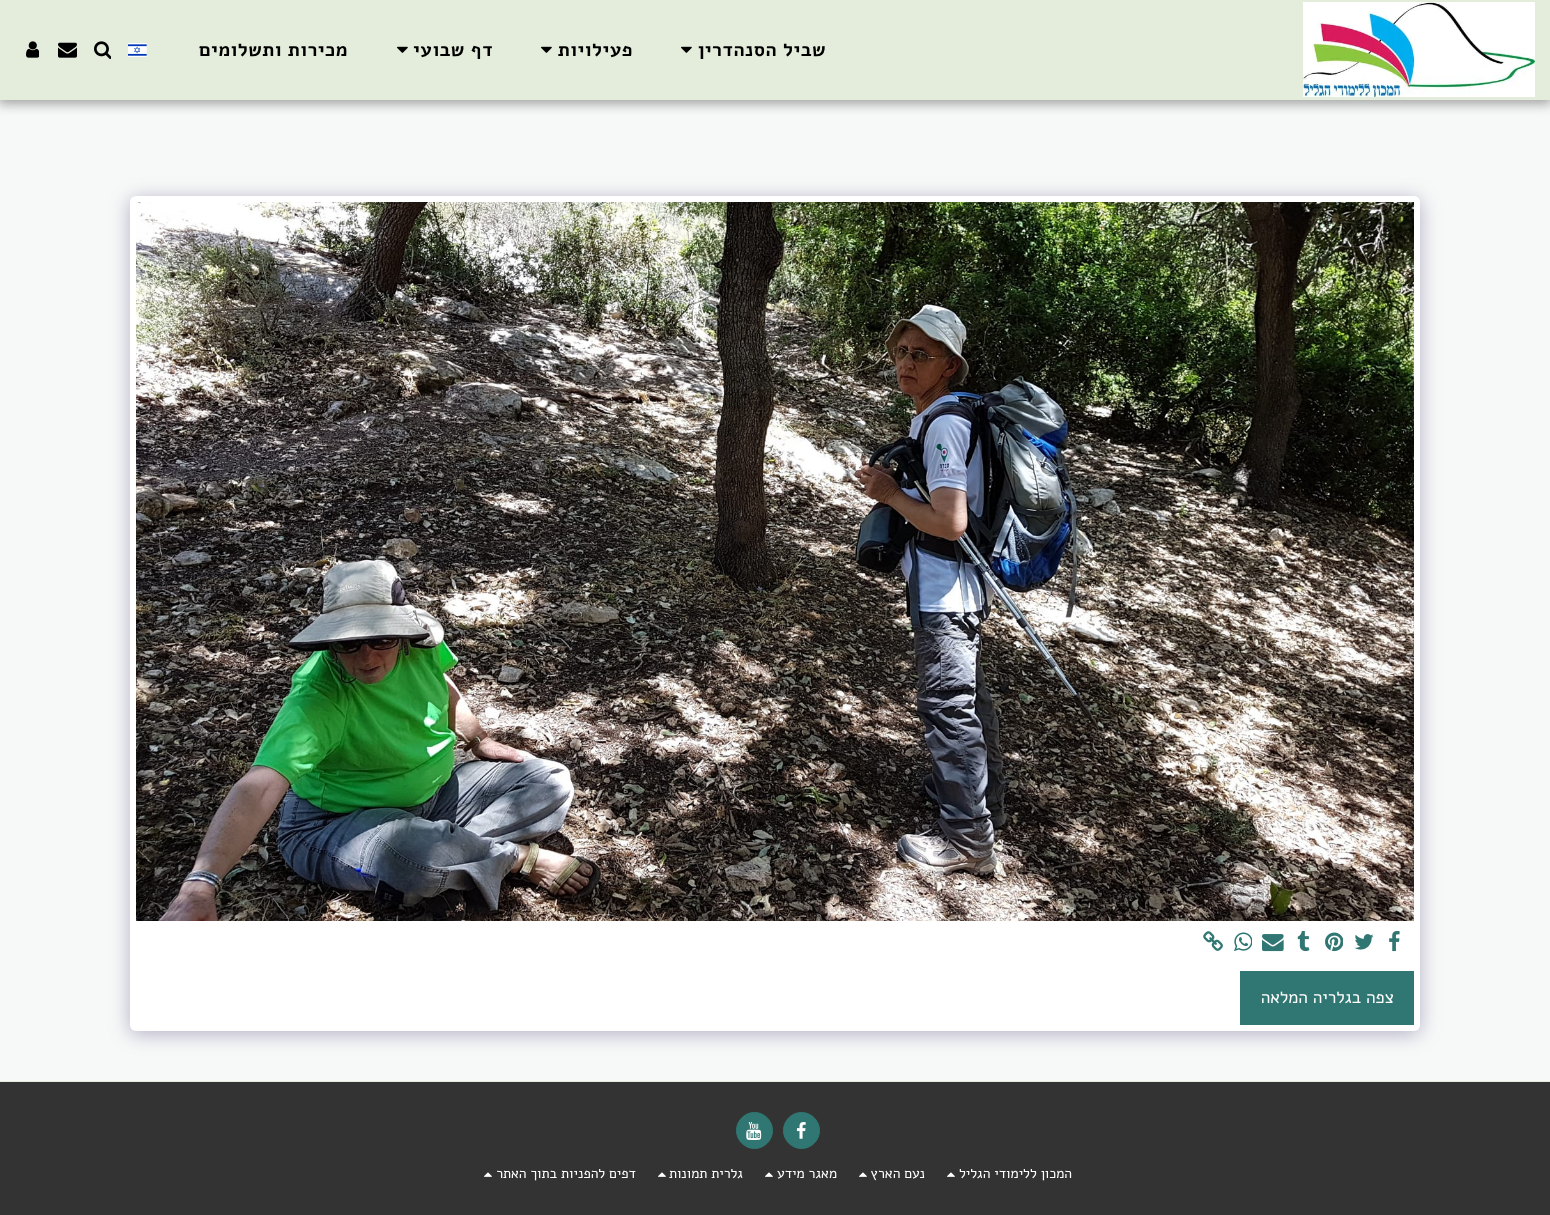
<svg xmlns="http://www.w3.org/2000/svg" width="1550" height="1215">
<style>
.a{font:bold 19px Alef;letter-spacing:0.5px;direction:rtl;fill:#000}
.b{font:17.25px Alef;direction:rtl;fill:#fff}
.c{font:13.9px Alef;direction:rtl;fill:#fff}
</style>
<rect width="100%" height="100%" fill="#f7f9f8"/>
<path fill="#00000059" filter="blur(6px)" d="M-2 0h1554v104H-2z"/>
<path fill="#e4eddb" d="M0 0h1550v100H0z"/>
<image href="1.png" x="1303" y="2" width="232" height="95"/>
<image href="2.png" x="681" y="46" width="11" height="7"/>
<image href="2.png" x="541" y="46" width="11" height="7"/>
<image href="2.png" x="397" y="46" width="11" height="7"/>
<image href="3.png" x="128" y="43" width="19" height="14"/>
<image href="4.png" x="94" y="41" width="17" height="18"/>
<image href="5.png" x="58" y="42" width="19" height="16"/>
<image href="6.png" x="26" y="41" width="13" height="17"/>
<rect fill="#4d3f7a66" filter="blur(10px)" x="130" y="199" width="1290" height="835" rx="6"/>
<rect fill="#fff" x="130" y="196" width="1290" height="835" rx="6"/>
<image href="7.png" x="136" y="202" width="1278" height="719"/>
<image href="8.png" x="1389" y="931" width="11" height="21"/>
<image href="9.png" x="1354" y="934" width="20" height="16"/>
<image href="10.png" x="1325" y="932" width="18" height="20"/>
<image href="11.png" x="1297" y="931" width="13" height="21"/>
<image href="12.png" x="1262" y="934" width="22" height="18"/>
<image href="13.png" x="1234" y="932" width="18" height="20"/>
<image href="14.png" x="1203" y="931" width="20" height="20"/>
<path fill="#307672" d="M1240 971h174v54H1240z"/>
<path fill="#e4eddb" d="M0 1081h1550v1H0z"/>
<path fill="#333" d="M0 1082h1550v133H0z"/>
<circle fill="#307672" stroke="#307672" cx="801.5" cy="1130.5" r="18"/>
<image href="15.png" x="796" y="1122" width="10" height="17"/>
<circle fill="#307672" stroke="#307672" cx="754.5" cy="1130.5" r="18"/>
<image href="16.png" x="746" y="1122" width="16" height="18"/>
<image href="17.png" x="947" y="1172" width="8" height="5"/>
<image href="17.png" x="859" y="1172" width="8" height="5"/>
<image href="17.png" x="765" y="1172" width="8" height="5"/>
<image href="17.png" x="658" y="1172" width="8" height="5"/>
<image href="17.png" x="484" y="1172" width="8" height="5"/>
<text class="a" x="826" y="56">שביל הסנהדרין</text>
<text class="a" x="633" y="56">פעילויות</text>
<text class="a" x="493" y="56">דף שבועי</text>
<text class="a" x="348" y="56">מכירות ותשלומים</text>
<text class="b" x="1394" y="1003">צפה בגלריה המלאה</text>
<text class="c" x="1072" y="1178">המכון ללימודי הגליל</text>
<text class="c" x="925" y="1178">נעם הארץ</text>
<text class="c" x="837" y="1178">מאגר מידע</text>
<text class="c" x="743" y="1178">גלרית תמונות</text>
<text class="c" x="636" y="1178">דפים להפניות בתוך האתר</text>
</svg>
